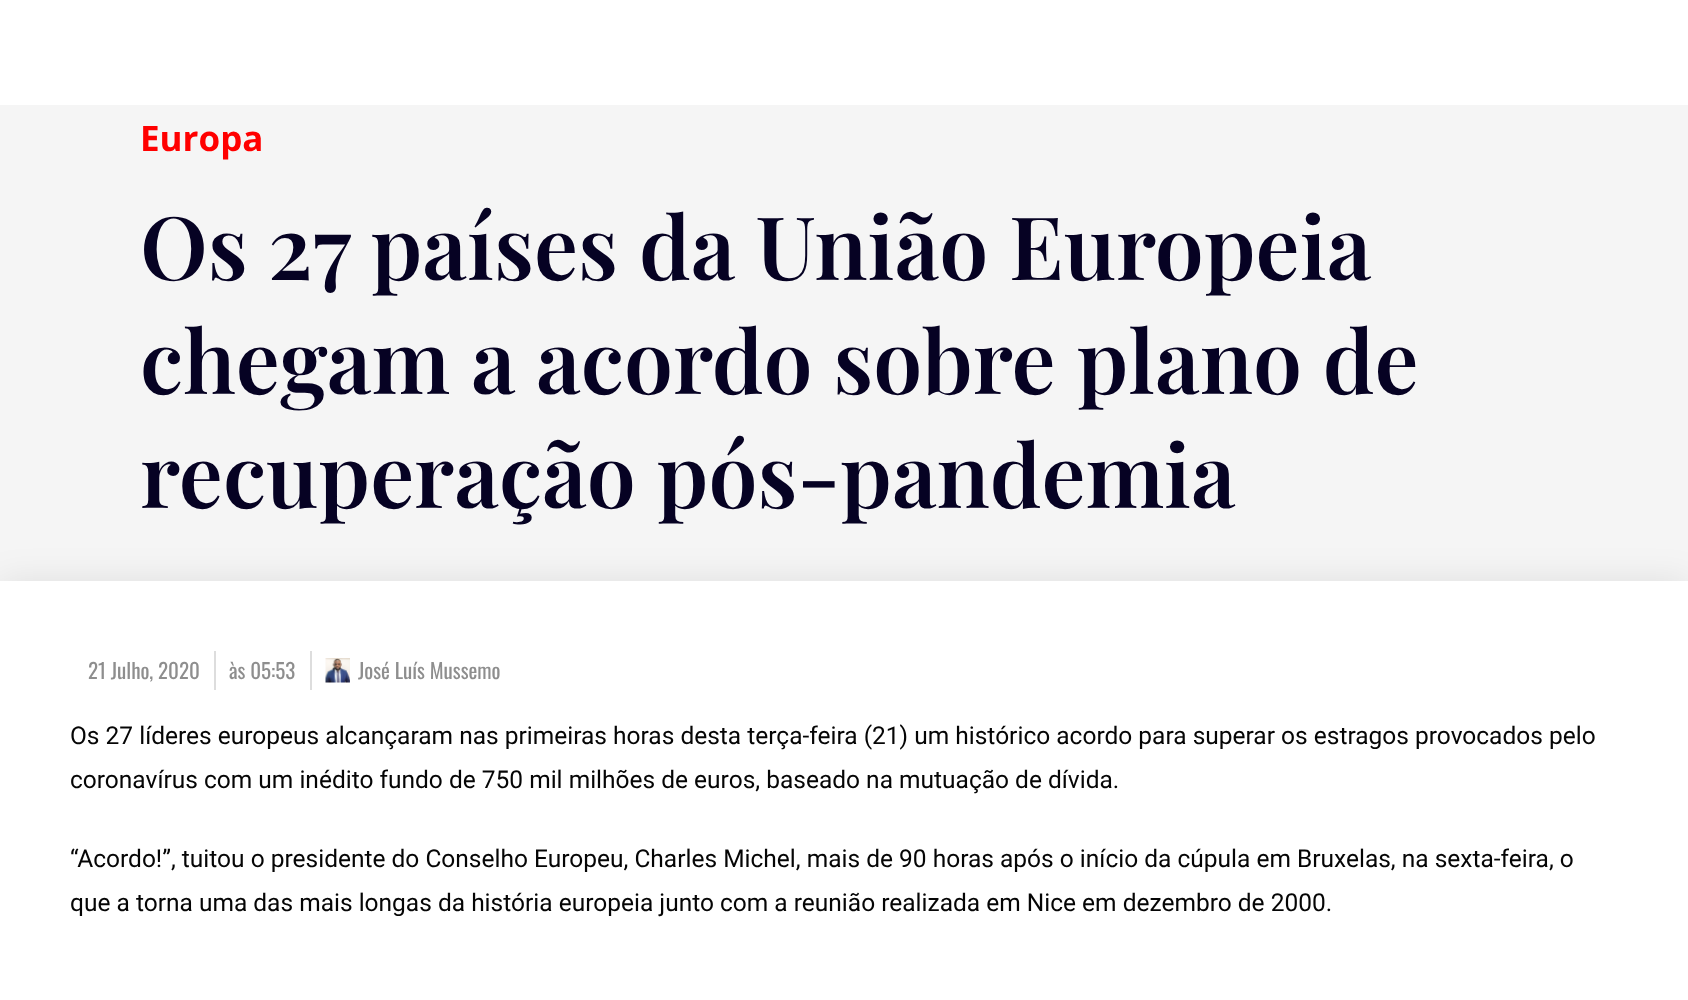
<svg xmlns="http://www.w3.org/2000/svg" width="1688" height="1000">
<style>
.a{font:bold 35px Open Sans;fill:#f00}
.b{font:600 87.5px Playfair Display;fill:#060223}
.c{font:21px Oswald;fill:#8e8e8e}
.d{font:24.5px Roboto;fill:#050505}
</style>
<rect width="100%" height="100%" fill="#f5f5f5"/>
<path fill="#fff" d="M0 0h1688v105H0z"/>
<path fill="#00000017" filter="blur(17.5px)" d="M0 581h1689v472H0z"/>
<path fill="#fff" d="M0 581h1688v419H0z"/>
<path fill="#ddd" d="M214 651h2v39H214z"/>
<path fill="#ddd" d="M310 651h2v39H310z"/>
<image href="1.png" x="325" y="658" width="25" height="25"/>
<text class="a" x="140" y="151">Europa</text>
<text class="b" x="140" y="280">Os 27 países da União Europeia</text>
<text class="b" x="140" y="394">chegam a acordo sobre plano de</text>
<text class="b" x="140" y="508">recuperação pós-pandemia</text>
<text class="c" x="88" y="679">21 Julho, 2020</text>
<text class="c" x="229" y="679">às 05:53</text>
<text class="c" x="358" y="679">José Luís Mussemo</text>
<text class="d" x="70" y="744">Os 27 líderes europeus alcançaram nas primeiras horas desta terça-feira (21) um histórico acordo para superar os estragos provocados pelo</text>
<text class="d" x="70" y="788">coronavírus com um inédito fundo de 750 mil milhões de euros, baseado na mutuação de dívida.</text>
<text class="d" x="70" y="867">“Acordo!”, tuitou o presidente do Conselho Europeu, Charles Michel, mais de 90 horas após o início da cúpula em Bruxelas, na sexta-feira, o</text>
<text class="d" x="70" y="911">que a torna uma das mais longas da história europeia junto com a reunião realizada em Nice em dezembro de 2000.</text>
</svg>
